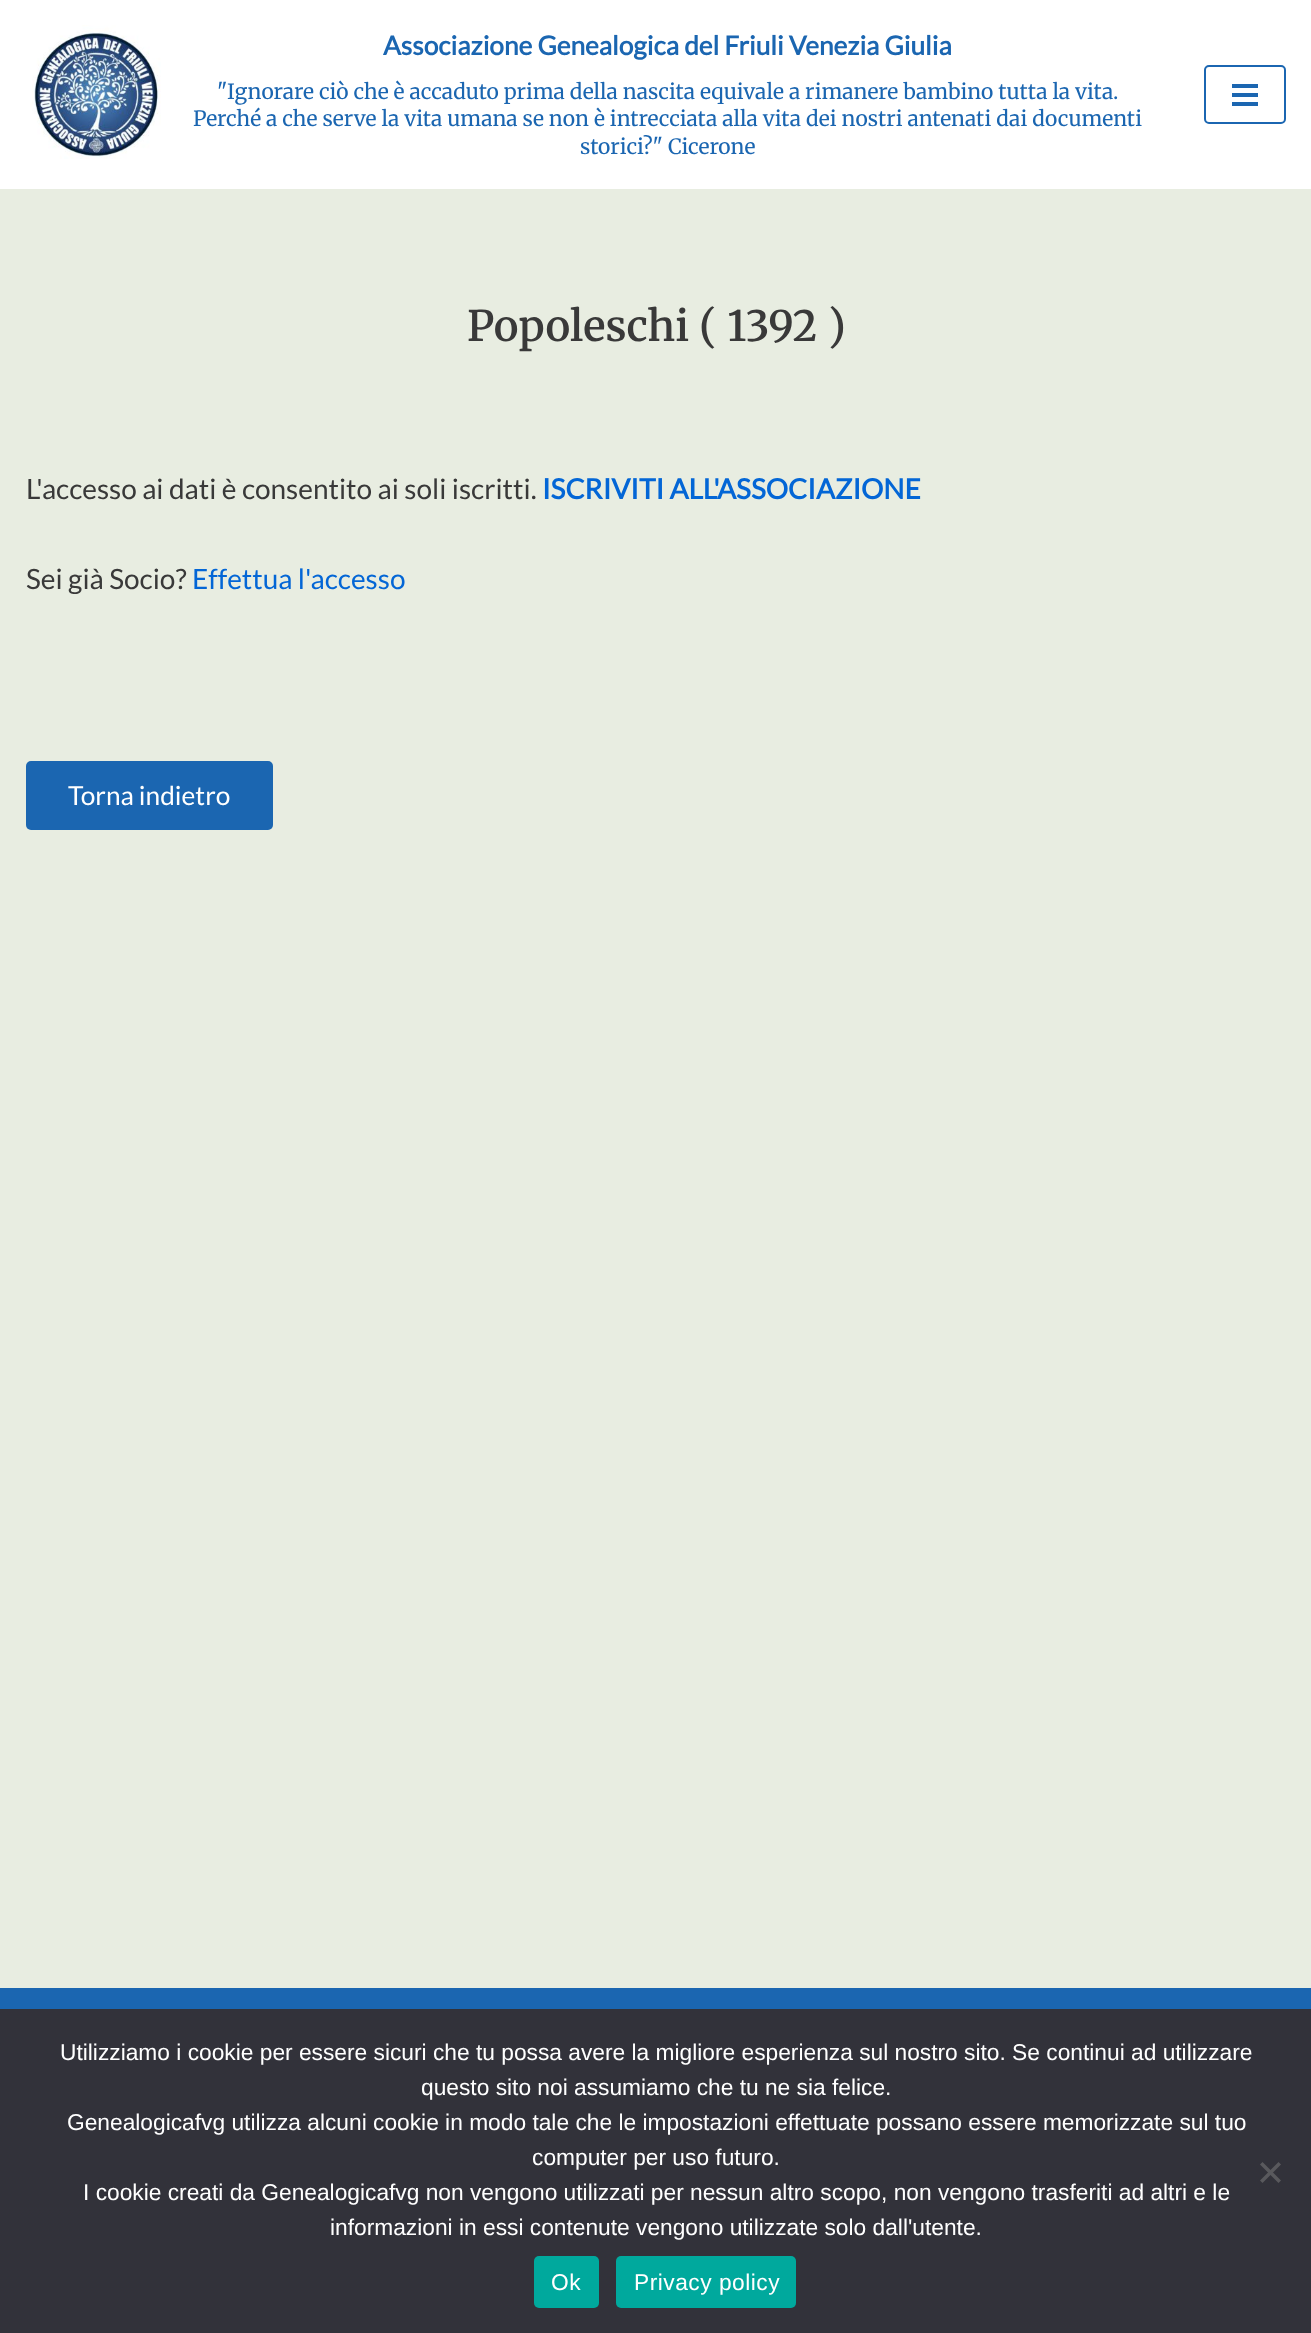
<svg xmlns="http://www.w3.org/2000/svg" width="1311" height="2333">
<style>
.a{font:bold 26.25px Lato;fill:#1b66b1}
.b{font:21px Merriweather;fill:#1b66b1}
.c{font:600 42px Merriweather;fill:#393939}
.d{font:28px Lato;fill:#393939}
.e{font:bold 28px Lato;fill:#0366d6}
.f{font:28px Lato;fill:#0366d6}
.g{font:26.25px Lato;fill:#fff}
.h{font:22.75px Liberation Sans;fill:#fff}
.i{font:22.75px Liberation Sans;letter-spacing:0.5px;fill:#fff}
</style>
<rect width="100%" height="100%" fill="#e8ede1"/>
<path fill="#fff" d="M0 0h1311v189H0z"/>
<image href="1.png" x="30" y="25" width="131" height="134"/>
<rect fill="none" stroke="#1b66b1" stroke-width="2" x="1205" y="66" width="80" height="57" rx="4"/>
<path fill="#1b66b1" d="M1232 84h26v4H1232z"/>
<path fill="#1b66b1" d="M1232 93h26v4H1232z"/>
<path fill="#1b66b1" d="M1232 102h26v4H1232z"/>
<rect fill="#1b66b1" x="26" y="761" width="247" height="69" rx="5"/>
<path fill="#1b66b1" d="M0 1988h1311v21H0z"/>
<path fill="#32323a" d="M0 2009h1311v324H0z"/>
<path fill="#59595d" d="M1278.5 2162l2.5 2.5l-18.5 18.5l-2.5-2.5z"/>
<path fill="#59595d" d="M1260 2164.5l2.5-2.5l18.5 18.5l-2.5 2.5z"/>
<rect fill="#00a99d" x="534" y="2256" width="65" height="52" rx="5"/>
<rect fill="#00a99d" x="616" y="2256" width="180" height="52" rx="5"/>
<text class="a" x="383" y="55">Associazione Genealogica del Friuli Venezia Giulia</text>
<text class="b" x="217" y="99">"Ignorare ciò che è accaduto prima della nascita equivale a rimanere bambino tutta la vita.</text>
<text class="b" x="193" y="126">Perché a che serve la vita umana se non è intrecciata alla vita dei nostri antenati dai documenti</text>
<text class="b" x="580" y="154">storici?" Cicerone</text>
<text class="c" x="467" y="341">Popoleschi ( 1392 )</text>
<text class="d" x="26" y="499">L'accesso ai dati è consentito ai soli iscritti.</text>
<text class="e" x="542" y="499">ISCRIVITI ALL'ASSOCIAZIONE</text>
<text class="d" x="26" y="589">Sei già Socio?</text>
<text class="f" x="192" y="589">Effettua l'accesso</text>
<text class="g" x="68" y="805">Torna indietro</text>
<text class="h" x="60" y="2060">Utilizziamo i cookie per essere sicuri che tu possa avere la migliore esperienza sul nostro sito. Se continui ad utilizzare</text>
<text class="h" x="421" y="2095">questo sito noi assumiamo che tu ne sia felice.</text>
<text class="h" x="67" y="2130">Genealogicafvg utilizza alcuni cookie in modo tale che le impostazioni effettuate possano essere memorizzate sul tuo</text>
<text class="h" x="532" y="2165">computer per uso futuro.</text>
<text class="h" x="83" y="2200">I cookie creati da Genealogicafvg non vengono utilizzati per nessun altro scopo, non vengono trasferiti ad altri e le</text>
<text class="h" x="330" y="2235">informazioni in essi contenute vengono utilizzate solo dall'utente.</text>
<text class="i" x="551" y="2290">Ok</text>
<text class="i" x="634" y="2290">Privacy policy</text>
</svg>
